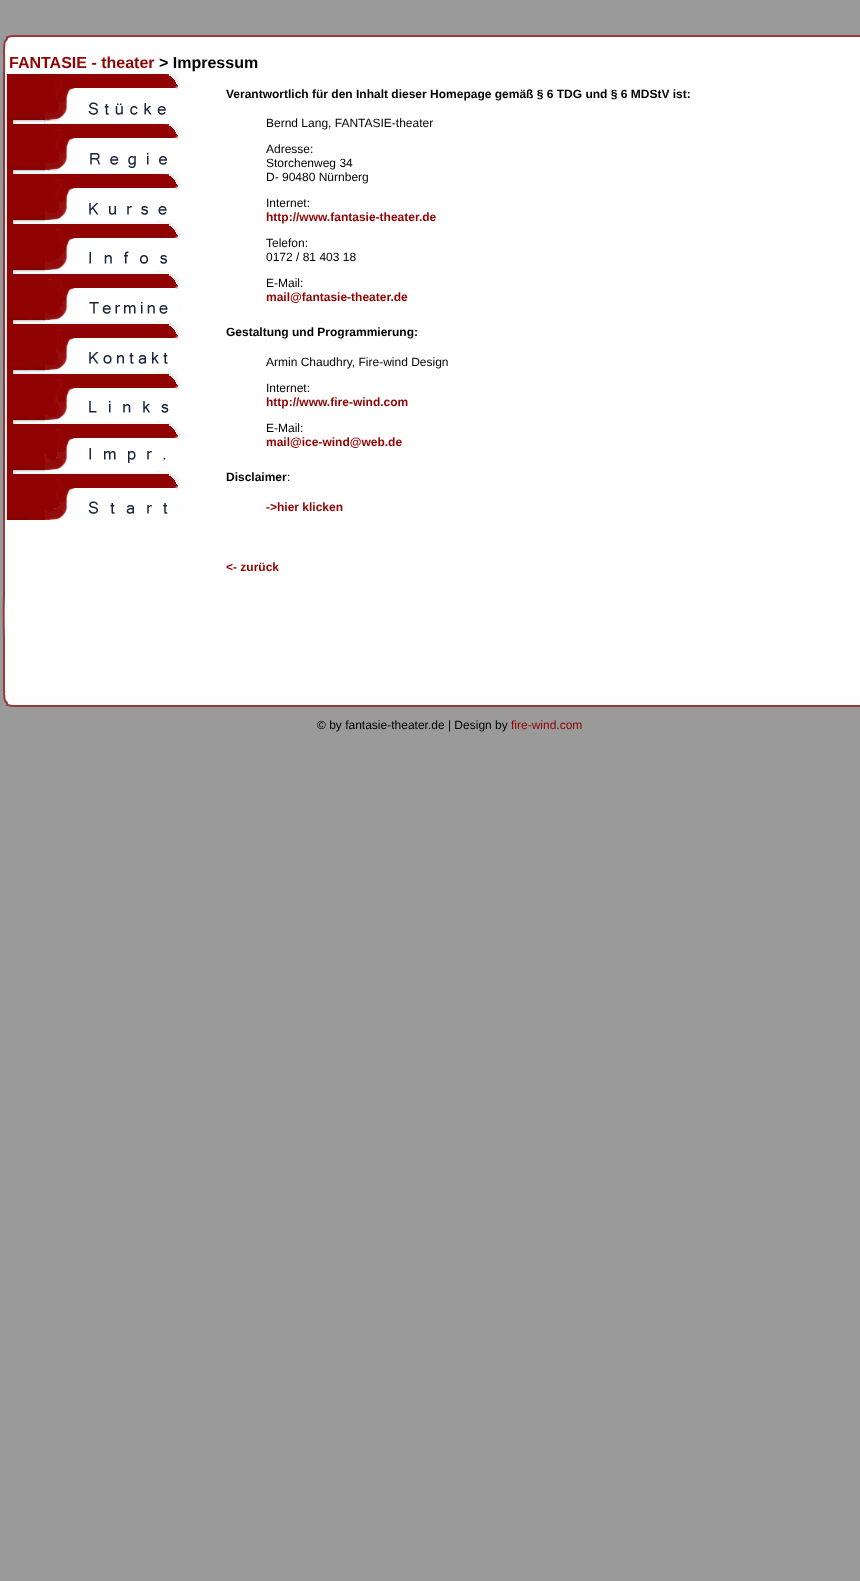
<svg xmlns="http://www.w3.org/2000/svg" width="860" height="1581">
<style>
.a{font:bold 16px Liberation Sans;fill:#910303}
.b{font:bold 16px Liberation Sans;fill:#000}
.c{font:bold 12px Liberation Sans;fill:#000}
.d{font:12px Liberation Sans;fill:#000}
.e{font:bold 12px Liberation Sans;fill:#910303}
.f{font:12px Liberation Sans;fill:#910303}
</style>
<rect width="100%" height="100%" fill="#9a9a9a"/>
<image href="1.png" x="3" y="35" width="857" height="19"/>
<image href="2.png" x="3" y="54" width="857" height="18"/>
<path fill="#fff" d="M5 520h177v170H5z"/>
<image href="3.png" x="0" y="72" width="182" height="48"/>
<image href="4.png" x="0" y="120" width="182" height="50"/>
<image href="5.png" x="0" y="170" width="182" height="50"/>
<image href="6.png" x="0" y="220" width="182" height="50"/>
<image href="7.png" x="0" y="270" width="182" height="50"/>
<image href="8.png" x="0" y="320" width="182" height="50"/>
<image href="9.png" x="0" y="370" width="182" height="50"/>
<image href="10.png" x="0" y="420" width="182" height="50"/>
<image href="11.png" x="0" y="470" width="182" height="50"/>
<image href="12.png" x="0" y="520" width="5" height="170"/>
<path fill="#fff" d="M182 72h678v618H182z"/>
<image href="13.png" x="0" y="690" width="860" height="20"/>
<text class="a" x="9" y="68">FANTASIE - theater</text>
<text class="b" x="159" y="68">&gt; Impressum</text>
<text class="c" x="226" y="98">Verantwortlich für den Inhalt dieser Homepage gemäß § 6 TDG und § 6 MDStV ist:</text>
<text class="d" x="266" y="127">Bernd Lang, FANTASIE-theater</text>
<text class="d" x="266" y="153">Adresse:</text>
<text class="d" x="266" y="167">Storchenweg 34</text>
<text class="d" x="266" y="181">D- 90480 Nürnberg</text>
<text class="d" x="266" y="207">Internet:</text>
<text class="e" x="266" y="221">http://www.fantasie-theater.de</text>
<text class="d" x="266" y="247">Telefon:</text>
<text class="d" x="266" y="261">0172 / 81 403 18</text>
<text class="d" x="266" y="287">E-Mail:</text>
<text class="e" x="266" y="301">mail@fantasie-theater.de</text>
<text class="c" x="226" y="336">Gestaltung und Programmierung:</text>
<text class="d" x="266" y="366">Armin Chaudhry, Fire-wind Design</text>
<text class="d" x="266" y="392">Internet:</text>
<text class="e" x="266" y="406">http://www.fire-wind.com</text>
<text class="d" x="266" y="432">E-Mail:</text>
<text class="e" x="266" y="446">mail@ice-wind@web.de</text>
<text class="c" x="226" y="481">Disclaimer</text>
<text class="d" x="287" y="481">:</text>
<text class="e" x="266" y="511">-&gt;hier klicken</text>
<text class="e" x="226" y="571">&lt;- zurück</text>
<text class="d" x="317" y="729">© by fantasie-theater.de | Design by</text>
<text class="f" x="511" y="729">fire-wind.com</text>
</svg>
